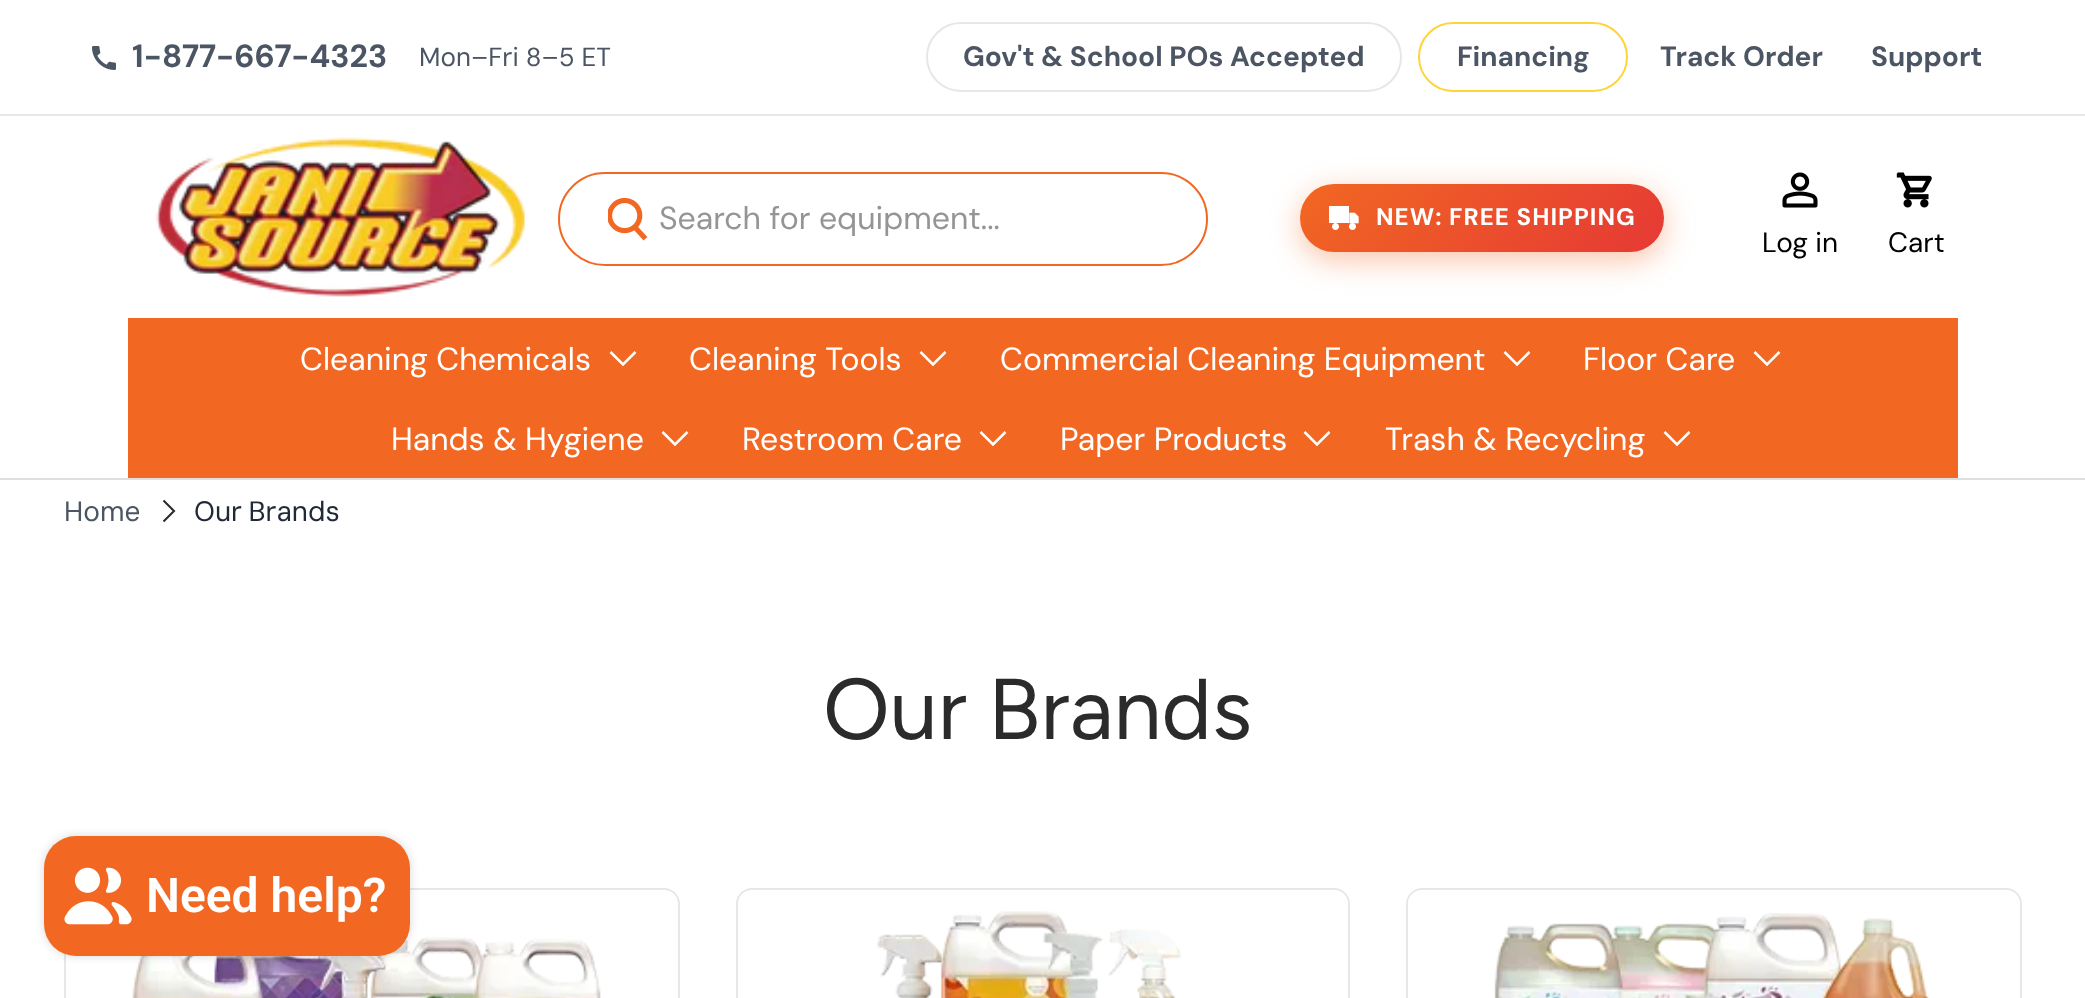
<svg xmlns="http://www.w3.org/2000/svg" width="2085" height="998">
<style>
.a{font:bold 32px DM Sans;fill:#4b5563}
.b{font:26px DM Sans;fill:#4b5563}
.c{font:bold 28px 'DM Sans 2';fill:#4b5563}
.d{font:32px 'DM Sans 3';fill:#959595}
.e{font:bold 24px 'DM Sans 3';letter-spacing:1px;fill:#fff}
.f{font:28px 'DM Sans 2';fill:#000}
.g{font:32px 'DM Sans 3';fill:#fff}
.h{font:28px DM Sans;fill:#4b5563}
.i{font:28px DM Sans;fill:#1f2937}
.j{font:86px Figtree;fill:#2a2b2a}
.k{font:600 48px Roboto;fill:#fff}
</style>
<defs>
<linearGradient id="g1" gradientUnits="userSpaceOnUse" x1="1374" y1="110" x2="1590" y2="326"><stop offset="0" stop-color="#f26822"/><stop offset="1" stop-color="#e53935"/></linearGradient>
</defs>
<rect width="100%" height="100%" fill="#fff"/>
<path fill="#e5e7eb" d="M0 114h2085v2H0z"/>
<image href="1.png" x="92" y="46" width="24" height="24"/>
<rect fill="none" stroke="#e5e7eb" stroke-width="2" x="927" y="23" width="474" height="68" rx="34"/>
<rect fill="none" stroke="#ffd43b" stroke-width="2" x="1419" y="23" width="208" height="68" rx="34"/>
<path fill="#dfdfdf" d="M0 478h2085v2H0z"/>
<image href="2.png" x="156" y="137" width="369" height="160"/>
<rect fill="none" stroke="#f26822" stroke-width="2" x="559" y="173" width="648" height="92" rx="46"/>
<image href="3.png" x="608" y="198" width="40" height="43"/>
<rect fill="#f2682266" filter="blur(15px)" x="1300" y="192" width="364" height="68" rx="34"/>
<rect fill="url(#g1)" x="1300" y="184" width="364" height="68" rx="34"/>
<image href="4.png" x="1329" y="206" width="30" height="24"/>
<image href="5.png" x="1782" y="172" width="36" height="36"/>
<image href="6.png" x="1896" y="172" width="36" height="36"/>
<path fill="#f26822" d="M128 318h1830v160H128z"/>
<path fill="none" stroke="#fff" stroke-width="2.5" d="M635.5 352l-12.5 12.5l-12.5-12.5"/>
<path fill="none" stroke="#fff" stroke-width="2.5" d="M945.5 352l-12.5 12.5l-12.5-12.5"/>
<path fill="none" stroke="#fff" stroke-width="2.5" d="M1529.5 352l-12.5 12.5l-12.5-12.5"/>
<path fill="none" stroke="#fff" stroke-width="2.5" d="M1779.5 352l-12.5 12.5l-12.5-12.5"/>
<path fill="none" stroke="#fff" stroke-width="2.5" d="M687.5 432l-12.5 12.5l-12.5-12.5"/>
<path fill="none" stroke="#fff" stroke-width="2.5" d="M1005.5 432l-12.5 12.5l-12.5-12.5"/>
<path fill="none" stroke="#fff" stroke-width="2.5" d="M1329.5 432l-12.5 12.5l-12.5-12.5"/>
<path fill="none" stroke="#fff" stroke-width="2.5" d="M1689.5 432l-12.5 12.5l-12.5-12.5"/>
<path fill="none" stroke="#2a2b2a" stroke-width="2.1" d="M163.5 500.5l10.5 10.5l-10.5 10.5"/>
<rect fill="none" stroke="#e5e7eb" stroke-width="2" x="65" y="889" width="614" height="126" rx="15"/>
<path fill="#fff" d="M80 890h584c7.5 0 14 6.5 14 14v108h-612v-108c0-7.5 6.5-14 14-14z"/>
<image href="7.png" x="132" y="936" width="469" height="62"/>
<rect fill="none" stroke="#e5e7eb" stroke-width="2" x="737" y="889" width="612" height="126" rx="15"/>
<path fill="#fff" d="M752 890h582c7.5 0 14 6.5 14 14v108h-610v-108c0-7.5 6.5-14 14-14z"/>
<image href="8.png" x="877" y="911" width="305" height="87"/>
<rect fill="none" stroke="#e5e7eb" stroke-width="2" x="1407" y="889" width="614" height="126" rx="15"/>
<path fill="#fff" d="M1422 890h584c7.5 0 14 6.5 14 14v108h-612v-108c0-7.5 6.5-14 14-14z"/>
<image href="9.png" x="1494" y="913" width="436" height="85"/>
<rect fill="#00000026" filter="blur(5px)" x="44" y="836" width="366" height="120" rx="32"/>
<rect fill="#f26822" x="44" y="836" width="366" height="120" rx="32"/>
<image href="10.png" x="64" y="867" width="68" height="58"/>
<text class="a" x="132" y="67">1-877-667-4323</text>
<text class="b" x="419" y="66">Mon–Fri 8–5 ET</text>
<text class="c" x="963" y="66">Gov't &amp; School POs Accepted</text>
<text class="c" x="1457" y="66">Financing</text>
<text class="c" x="1660" y="66">Track Order</text>
<text class="c" x="1871" y="66">Support</text>
<text class="d" x="659" y="229">Search for equipment...</text>
<text class="e" x="1376" y="225">NEW: FREE SHIPPING</text>
<text class="f" x="1762" y="252">Log in</text>
<text class="f" x="1888" y="252">Cart</text>
<text class="g" x="300" y="370">Cleaning Chemicals</text>
<text class="g" x="689" y="370">Cleaning Tools</text>
<text class="g" x="1000" y="370">Commercial Cleaning Equipment</text>
<text class="g" x="1583" y="370">Floor Care</text>
<text class="g" x="391" y="450">Hands &amp; Hygiene</text>
<text class="g" x="742" y="450">Restroom Care</text>
<text class="g" x="1060" y="450">Paper Products</text>
<text class="g" x="1385" y="450">Trash &amp; Recycling</text>
<text class="h" x="64" y="521">Home</text>
<text class="i" x="194" y="521" word-spacing="-1">Our Brands</text>
<text class="j" x="823" y="739">Our Brands</text>
<text class="k" x="146" y="912">Need help?</text>
</svg>
